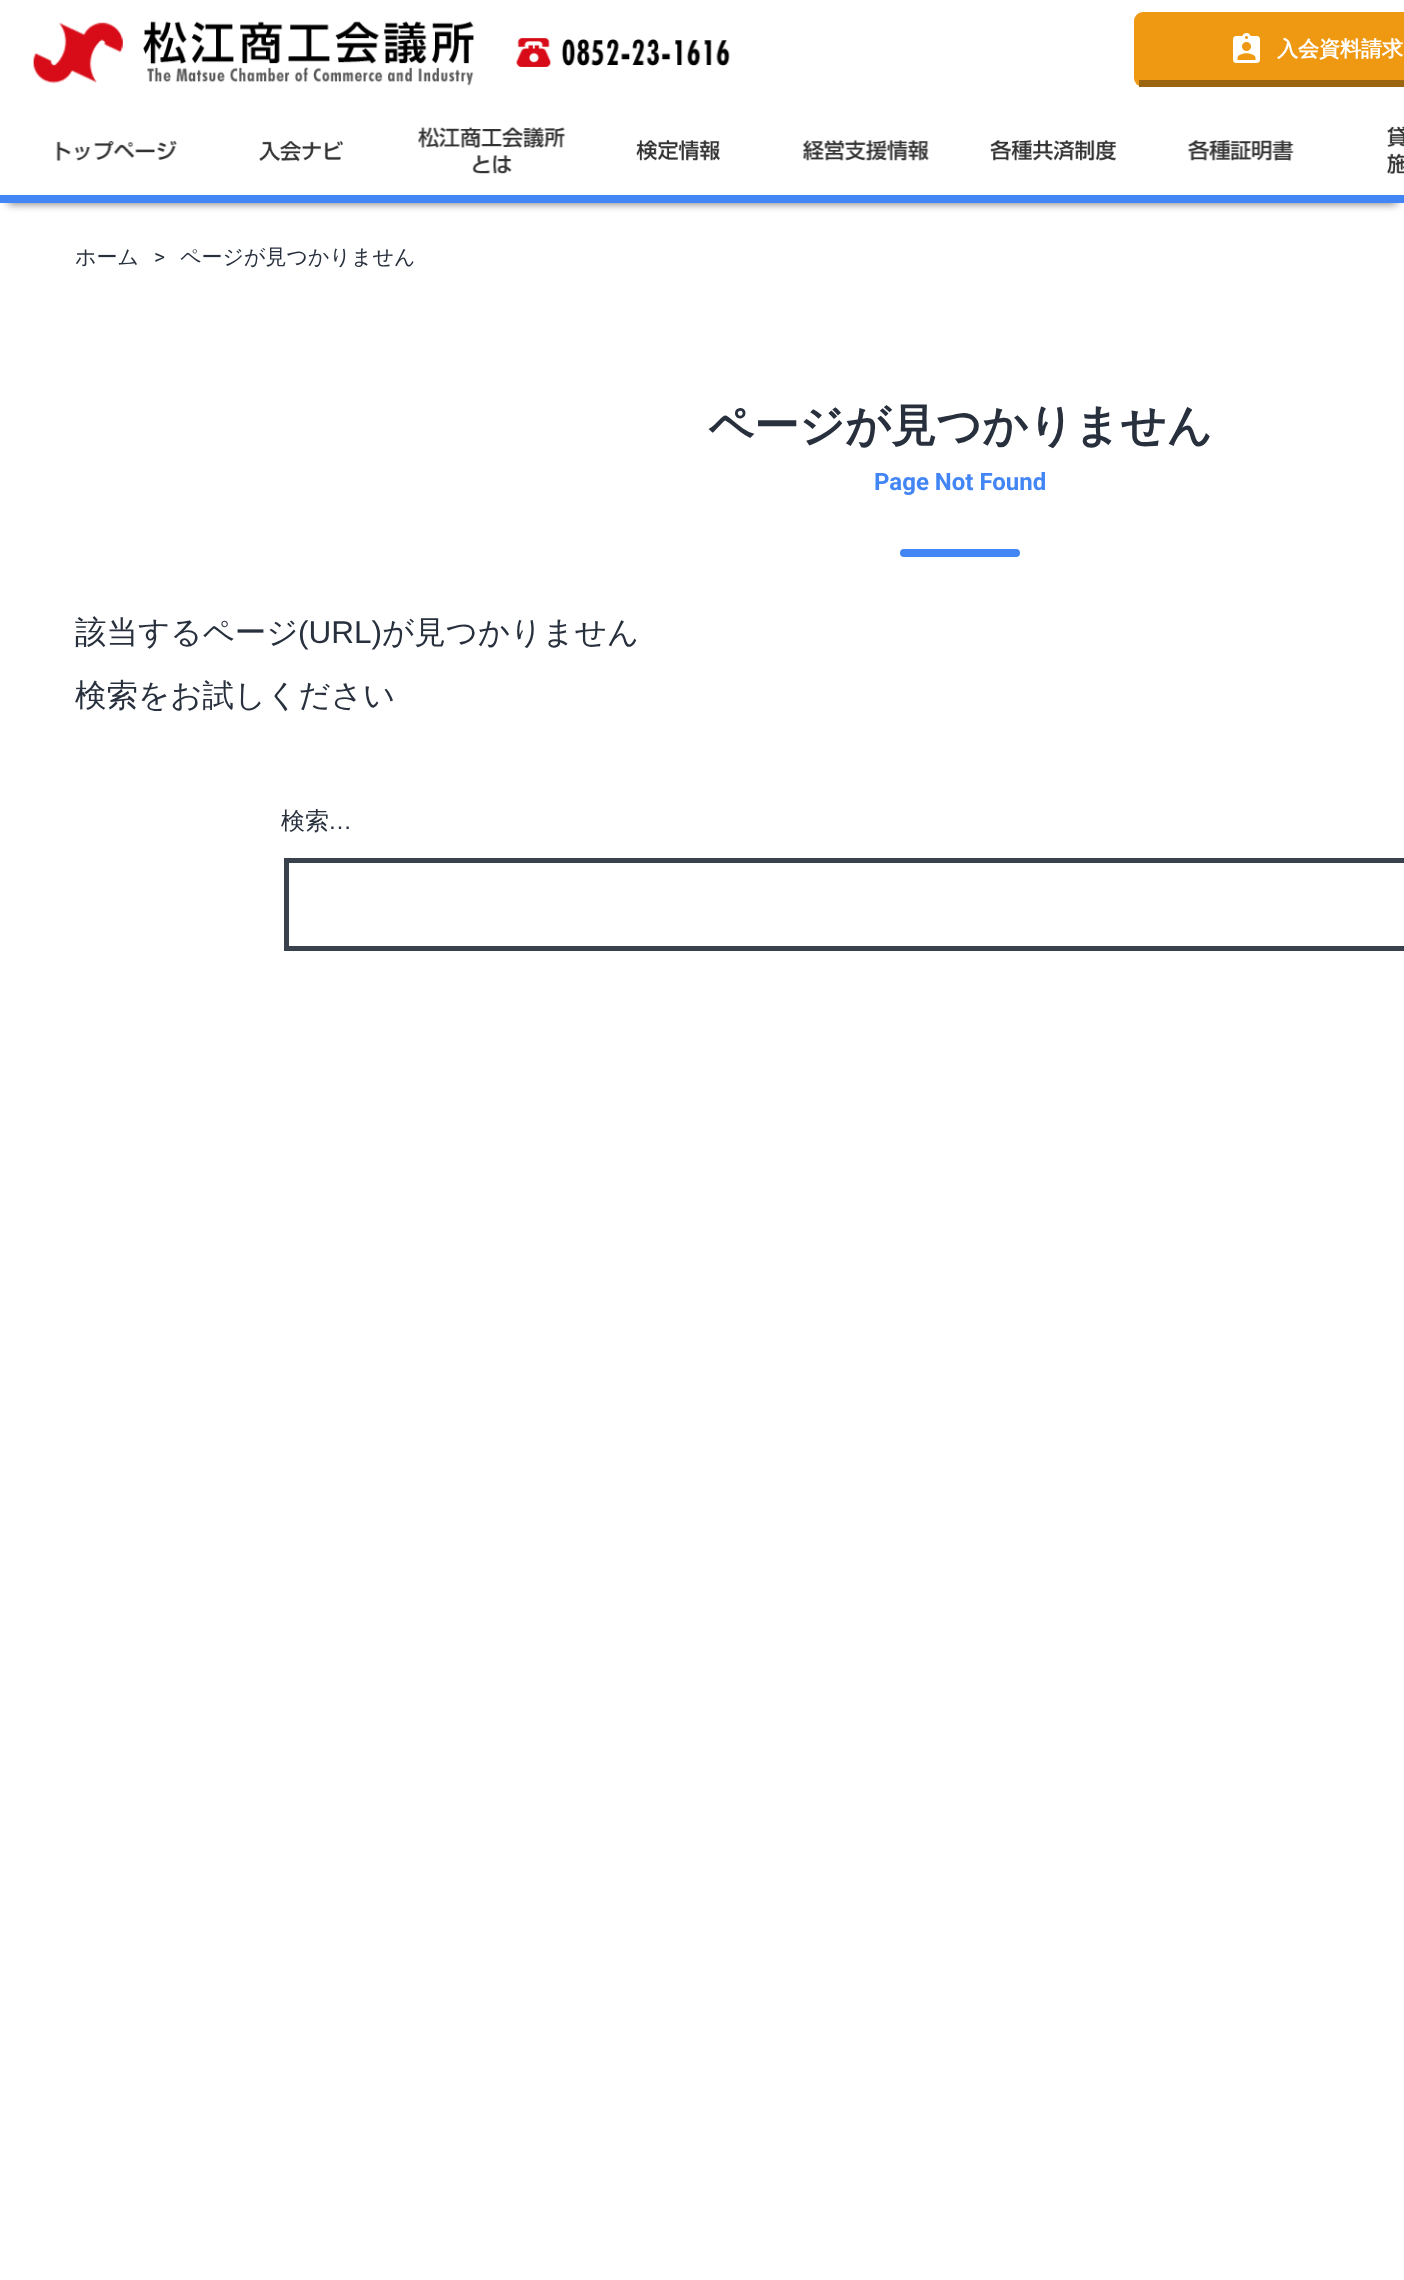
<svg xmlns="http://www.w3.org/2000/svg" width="1404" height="2280">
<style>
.a{font:bold 21px WenQuanYi Zen Hei;fill:#fff}
.b{font:500 21px WenQuanYi Zen Hei;fill:#28303d}
.c{font:21px Roboto;fill:#28303d}
.d{font:bold 45px WenQuanYi Zen Hei;fill:#28303d}
.e{font:bold 24px Roboto;fill:#4285f4}
.f{font:500 31.5px WenQuanYi Zen Hei;fill:#28303d}
.g{font:31.5px Liberation Sans;fill:#28303d}
.h{font:500 24px WenQuanYi Zen Hei;fill:#28303d}
.i{font:24px Liberation Sans;fill:#28303d}
</style>
<rect width="100%" height="100%" fill="#fff"/>
<path fill="#00000080" filter="blur(4.5px)" d="M8 17h1389v187H8z"/>
<path fill="#fff" d="M0 8h1404v187H0z"/>
<image href="1.png" x="33" y="21" width="441" height="65"/>
<image href="2.png" x="516" y="38" width="214" height="29"/>
<rect fill="#ef9811" x="1134" y="12" width="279" height="75" rx="9"/>
<path fill="#9c6611" d="M1139 80h265v7H1139z"/>
<image href="3.png" x="1233" y="33" width="27" height="30"/>
<path fill="#4285f4" d="M0 195h1404v8H0z"/>
<image href="4.png" x="56" y="141" width="121" height="20"/>
<image href="5.png" x="259" y="141" width="84" height="21"/>
<image href="6.png" x="418" y="127" width="148" height="47"/>
<image href="7.png" x="636" y="140" width="84" height="21"/>
<image href="8.png" x="802" y="140" width="127" height="21"/>
<image href="9.png" x="990" y="140" width="126" height="21"/>
<image href="10.png" x="1187" y="140" width="107" height="21"/>
<image href="11.png" x="1387" y="126" width="17" height="48"/>
<rect fill="#4285f4" x="900" y="549" width="120" height="8" rx="4"/>
<path fill="none" stroke="#39414d" stroke-width="5" d="M286.5 860.5h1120v88H286.5z"/>
<text class="a" x="1277" y="56">入会資料請求</text>
<text class="b" x="75" y="264">ホーム</text>
<text class="c" x="154" y="264">&gt;</text>
<text class="b" x="180" y="264">ページが見つかりません</text>
<text class="d" x="708" y="441">ページが見つかりません</text>
<text class="e" x="874" y="490">Page Not Found</text>
<text class="f" x="75" y="643">該当するページ</text>
<text class="g" x="298" y="643">(URL)</text>
<text class="f" x="382" y="643">が見つかりません</text>
<text class="f" x="75" y="706">検索をお試しください</text>
<text class="h" x="281" y="829">検索</text>
<text class="i" x="328" y="829">…</text>
</svg>
